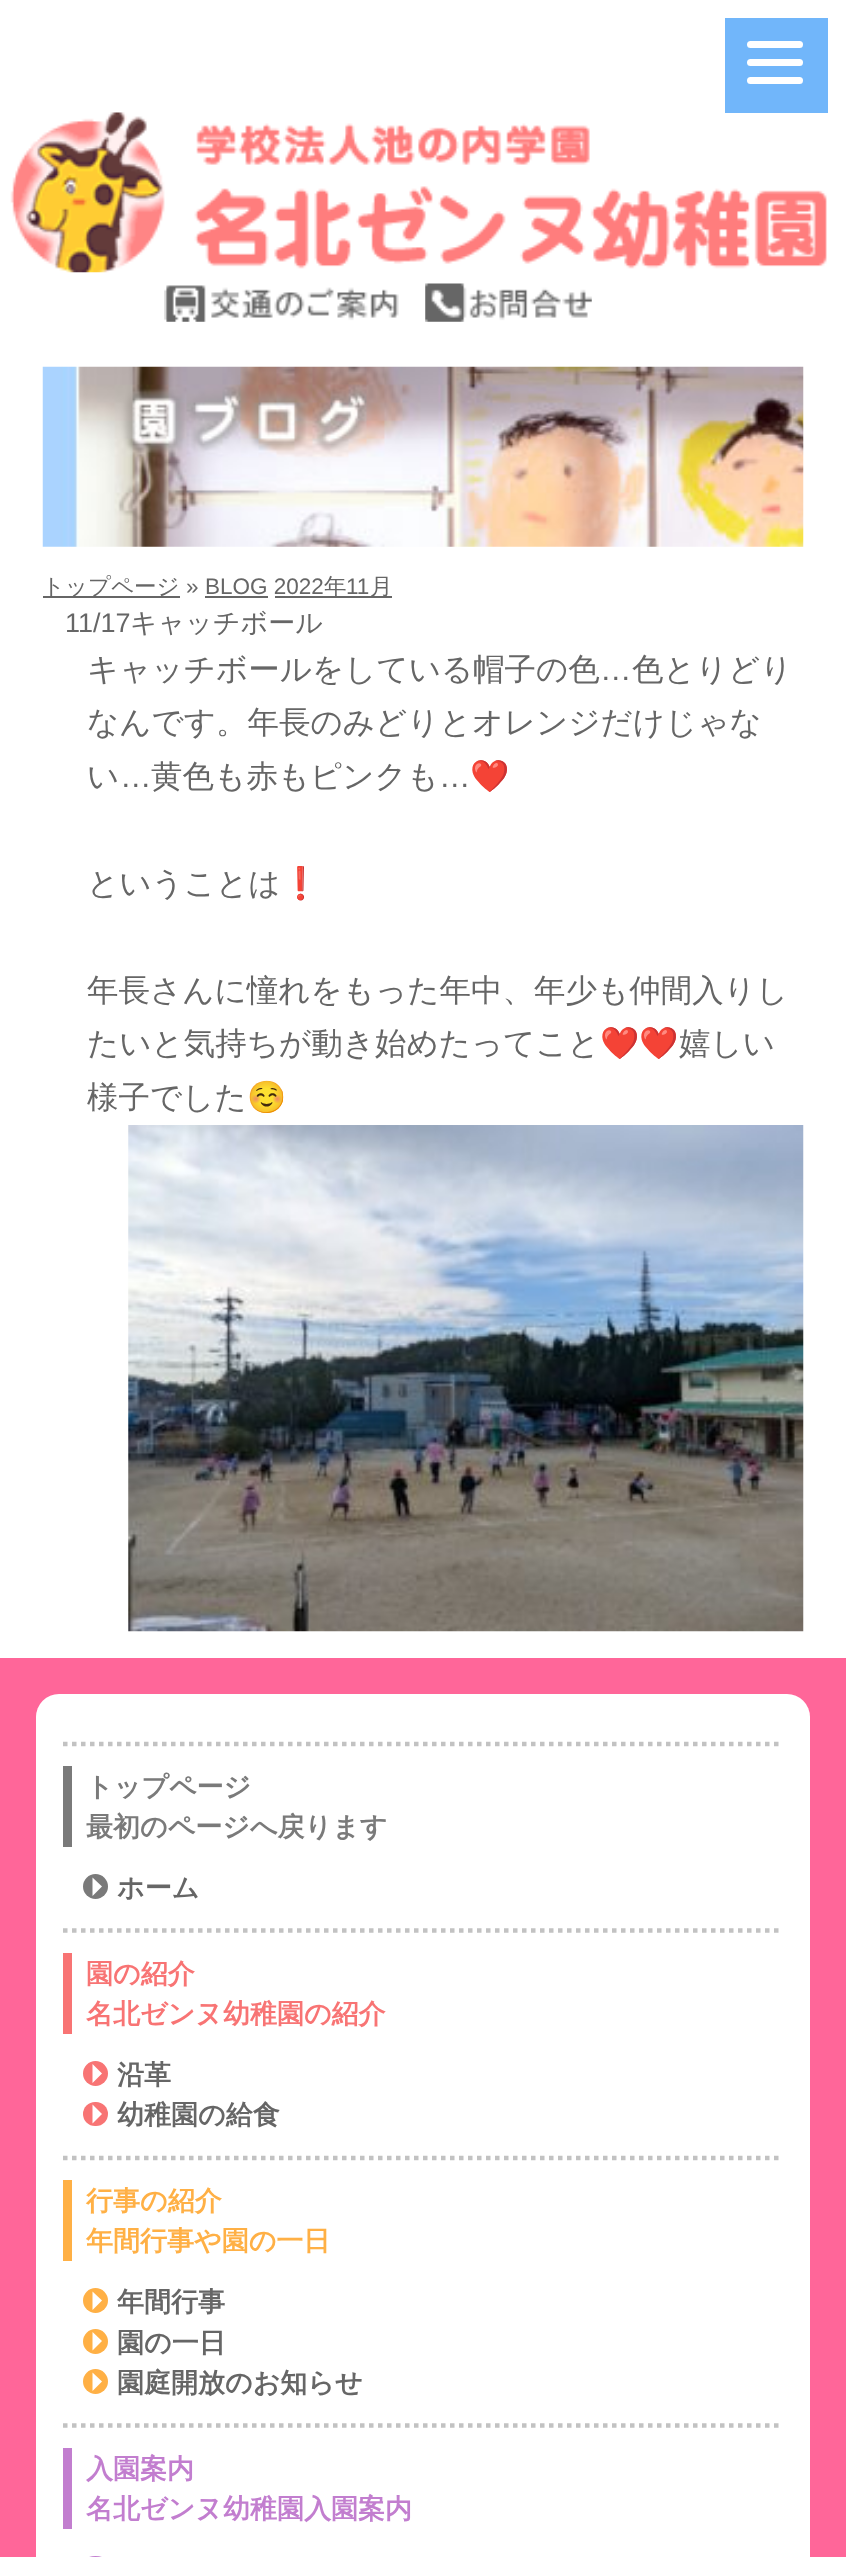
<svg xmlns="http://www.w3.org/2000/svg" width="846" height="2557">
<style>
.a{font:500 22.5px WenQuanYi Zen Hei;fill:#666}
.b{font:22.5px Liberation Sans;fill:#666}
.c{font:27px Liberation Sans;fill:#666}
.d{font:500 27px WenQuanYi Zen Hei;fill:#666}
.e{font:500 31.5px WenQuanYi Zen Hei;fill:#666}
.f{font:31.5px Liberation Sans;fill:#666}
.g{font:31.5px Noto Color Emoji;fill:#666}
.h{font:bold 27px WenQuanYi Zen Hei;fill:#7a7a7a}
.i{font:bold 27px WenQuanYi Zen Hei;fill:#666}
.j{font:bold 27px WenQuanYi Zen Hei;fill:#f87474}
.k{font:bold 27px WenQuanYi Zen Hei;fill:#ffb045}
.l{font:bold 27px WenQuanYi Zen Hei;fill:#c27ecf}
</style>
<rect width="100%" height="100%" fill="#fff"/>
<image href="1.png" x="10" y="112" width="817" height="161"/>
<image href="2.png" x="164" y="285" width="235" height="37"/>
<image href="3.png" x="425" y="283" width="167" height="39"/>
<path fill="#71b6fa" d="M725 18h103v95H725z"/>
<rect fill="#fff" x="747" y="41" width="56" height="7" rx="3.5"/>
<rect fill="#fff" x="747" y="59" width="56" height="7" rx="3.5"/>
<rect fill="#fff" x="747" y="77" width="56" height="7" rx="3.5"/>
<image href="4.png" x="42" y="366" width="762" height="181"/>
<path fill="#666" d="M43 596h137v2H43z"/>
<path fill="#666" d="M205 596h63v2H205z"/>
<path fill="#666" d="M275 596h117v2H275z"/>
<image href="5.png" x="128" y="1125" width="676" height="507"/>
<path fill="#f69" d="M0 1658h846v899H0z"/>
<rect fill="#fff" x="36" y="1694" width="774" height="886" rx="23"/>
<path fill="none" stroke="#c2c2c2" stroke-width="4.5" stroke-dasharray="4.5 4.5" d="M63 1744h720"/>
<path fill="#7a7a7a" d="M63 1766h9v81H63z"/>
<circle fill="#7a7a7a" cx="95.5" cy="1886.5" r="12.5"/>
<path fill="#fff" d="M92.5 1877.5l9.5 9l-9.5 9.5z"/>
<path fill="none" stroke="#c2c2c2" stroke-width="4.5" stroke-dasharray="4.5 4.5" d="M63 1930.5h720"/>
<path fill="#f87474" d="M63 1953h9v81H63z"/>
<circle fill="#f87474" cx="95.5" cy="2073.5" r="12.5"/>
<path fill="#fff" d="M92.5 2064l9.5 9.5l-9.5 9.5z"/>
<rect fill="#f87474" x="83" y="2102" width="25" height="24" rx="12"/>
<path fill="#fff" d="M92.5 2104.5l9.5 9.5l-9.5 9.5z"/>
<path fill="none" stroke="#c2c2c2" stroke-width="4.5" stroke-dasharray="4.5 4.5" d="M63 2158h720"/>
<path fill="#ffb045" d="M63 2180h9v81H63z"/>
<circle fill="#ffb045" cx="95.5" cy="2300.5" r="12.5"/>
<path fill="#fff" d="M92.5 2291.5l9.5 9l-9.5 9.5z"/>
<circle fill="#ffb045" cx="95.5" cy="2341.5" r="12.5"/>
<path fill="#fff" d="M92.5 2332l9.5 9l-9.5 9.5z"/>
<circle fill="#ffb045" cx="95.5" cy="2381.5" r="12.5"/>
<path fill="#fff" d="M92.5 2372.5l9.5 9l-9.5 9.5z"/>
<path fill="none" stroke="#c2c2c2" stroke-width="4.5" stroke-dasharray="4.5 4.5" d="M63 2425.5h720"/>
<path fill="#c27ecf" d="M63 2448h9v81H63z"/>
<rect fill="#c27ecf" x="83" y="2556" width="25" height="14" rx="12.5"/>
<text class="a" x="42" y="594">トップページ</text>
<text class="b" x="186" y="594">»</text>
<text class="b" x="205" y="594">BLOG 2022</text>
<text class="a" x="324" y="594">年</text>
<text class="b" x="346" y="594">11</text>
<text class="a" x="370" y="594">月</text>
<text class="c" x="65" y="632">11/17</text>
<text class="d" x="130" y="632">キャッチボール</text>
<text class="e" x="87" y="680">キャッチボールをしている帽子の色</text>
<text class="f" x="600" y="680">…</text>
<text class="e" x="632" y="680">色とりどり</text>
<text class="e" x="87" y="733">なんです。年長のみどりとオレンジだけじゃな</text>
<text class="e" x="87" y="787">い</text>
<text class="f" x="120" y="787">…</text>
<text class="e" x="151" y="787">黄色も赤もピンクも</text>
<text class="f" x="439" y="787">…</text>
<text class="g" x="470" y="787">❤️</text>
<text class="e" x="87" y="894">ということは</text>
<text class="g" x="281" y="894">❗</text>
<text class="e" x="87" y="1001">年長さんに憧れをもった年中、年少も仲間入りし</text>
<text class="e" x="87" y="1054">たいと気持ちが動き始めたってこと</text>
<text class="g" x="600" y="1054">❤️❤️</text>
<text class="e" x="679" y="1054">嬉しい</text>
<text class="e" x="87" y="1108">様子でした</text>
<text class="g" x="247" y="1108">☺️</text>
<text class="h" x="86" y="1796">トップページ</text>
<text class="h" x="86" y="1836">最初のページへ戻ります</text>
<text class="i" x="117" y="1897">ホーム</text>
<text class="j" x="86" y="1983">園の紹介</text>
<text class="j" x="86" y="2023">名北ゼンヌ幼稚園の紹介</text>
<text class="i" x="117" y="2084">沿革</text>
<text class="i" x="117" y="2124">幼稚園の給食</text>
<text class="k" x="86" y="2210">行事の紹介</text>
<text class="k" x="86" y="2250">年間行事や園の一日</text>
<text class="i" x="117" y="2311">年間行事</text>
<text class="i" x="117" y="2352">園の一日</text>
<text class="i" x="117" y="2392">園庭開放のお知らせ</text>
<text class="l" x="86" y="2478">入園案内</text>
<text class="l" x="86" y="2518">名北ゼンヌ幼稚園入園案内</text>
</svg>
